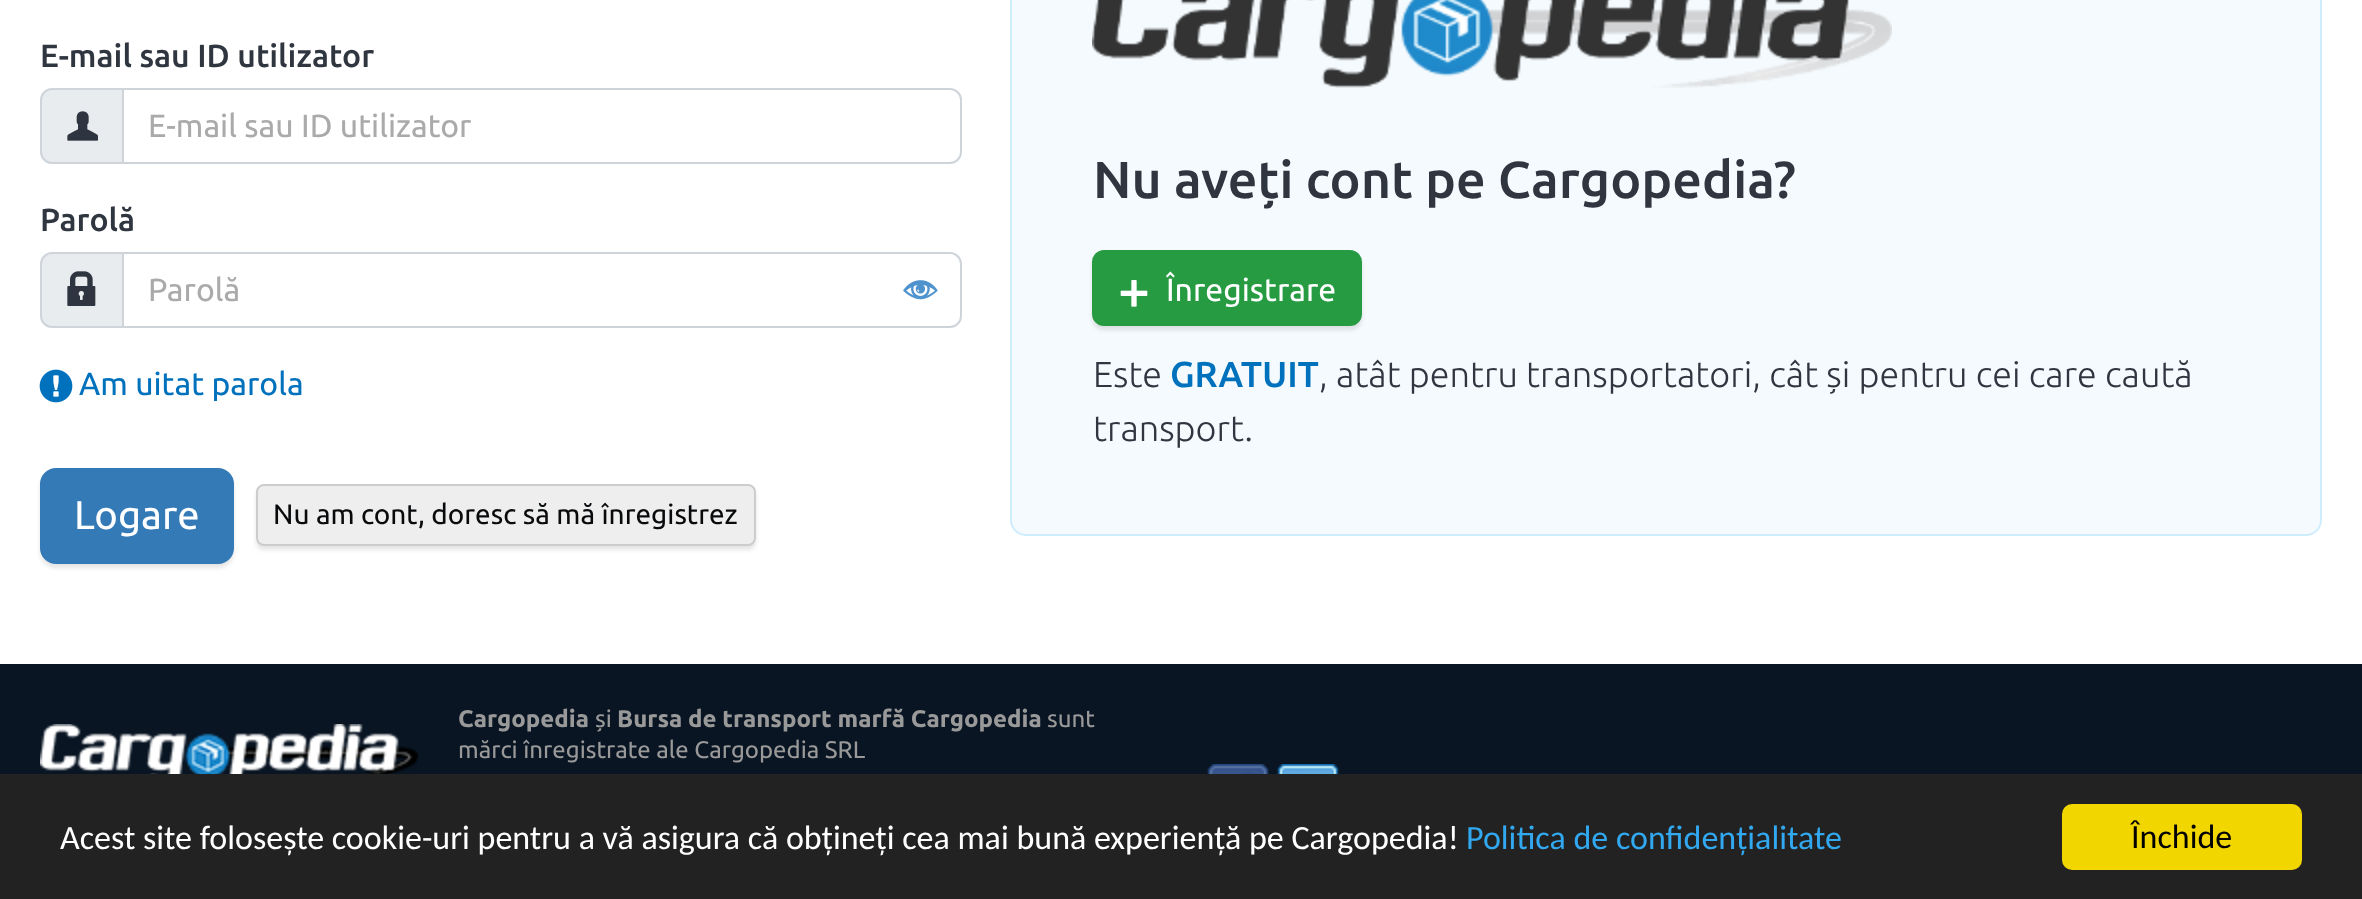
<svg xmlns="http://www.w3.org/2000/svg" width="2362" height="899">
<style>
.a{font:500 32px Ubuntu;fill:#303640}
.b{font:32px Ubuntu;fill:#aaa}
.c{font:32px Ubuntu;fill:#0071bc}
.d{font:40px Ubuntu;fill:#fff}
.e{font:28px Ubuntu;fill:#080a0c}
.f{font:500 52px Ubuntu;fill:#303640}
.g{font:32px Ubuntu;fill:#fff}
.h{font:300 36px Ubuntu;fill:#303640}
.i{font:500 36px Ubuntu;fill:#0071bc}
.j{font:bold 24px Ubuntu;fill:#999}
.k{font:24px Ubuntu;fill:#999}
.l{font:34px Carlito;fill:#fff}
.m{font:34px Carlito;fill:#31a8f0}
.n{font:34px Carlito;fill:#000}
</style>
<rect width="100%" height="100%" fill="#fff"/>
<path fill="#e9ecef" stroke="#ced4da" stroke-width="2" d="M52 89h71v74h-71c-6 0-11-5-11-11v-52c0-6 5-11 11-11z"/>
<image href="1.png" x="67" y="111" width="31" height="30"/>
<path fill="none" stroke="#ced4da" stroke-width="2" d="M123 89h827c6 0 11 5 11 11v52c0 6-5 11-11 11h-827z"/>
<path fill="#e9ecef" stroke="#ced4da" stroke-width="2" d="M52 253h71v74h-71c-6 0-11-5-11-11v-52c0-6 5-11 11-11z"/>
<image href="2.png" x="67" y="271" width="29" height="35"/>
<path fill="none" stroke="#ced4da" stroke-width="2" d="M123 253h827c6 0 11 5 11 11v52c0 6-5 11-11 11h-827z"/>
<image href="3.png" x="903" y="280" width="35" height="20"/>
<image href="4.png" x="39" y="369" width="34" height="34"/>
<rect fill="#0000001a" filter="blur(2px)" x="40" y="472" width="194" height="96" rx="16"/>
<rect fill="#337ab7" stroke="#337ab7" stroke-width="2" x="41" y="469" width="192" height="94" rx="15"/>
<rect fill="#0000001a" filter="blur(2px)" x="256" y="488" width="500" height="62" rx="8"/>
<rect fill="#eee" stroke="#ccc" stroke-width="2" x="257" y="485" width="498" height="60" rx="7"/>
<rect fill="#f4fafd" stroke="#cfeefd" stroke-width="2" x="1011" y="-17" width="1310" height="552" rx="15"/>
<image href="5.png" x="1092" y="0" width="800" height="88"/>
<rect fill="#0000001a" filter="blur(2px)" x="1092" y="254" width="270" height="76" rx="12"/>
<rect fill="#269b42" stroke="#269b42" stroke-width="2" x="1093" y="251" width="268" height="74" rx="11"/>
<image href="6.png" x="1120" y="280" width="28" height="27"/>
<path fill="#091523" d="M0 664h2362v110H0z"/>
<image href="7.png" x="40" y="724" width="378" height="50"/>
<image href="8.png" x="1207" y="764" width="62" height="10"/>
<image href="9.png" x="1277" y="764" width="62" height="10"/>
<path fill="#222" d="M0 774h2362v125H0z"/>
<rect fill="#f1d600" x="2062" y="804" width="240" height="66" rx="10"/>
<text class="a" x="40" y="67">E-mail sau ID utilizator</text>
<text class="b" x="148" y="137">E-mail sau ID utilizator</text>
<text class="a" x="40" y="231">Parolă</text>
<text class="b" x="148" y="301">Parolă</text>
<text class="c" x="79" y="395">Am uitat parola</text>
<text class="d" x="74" y="529">Logare</text>
<text class="e" x="273" y="524">Nu am cont, doresc să mă înregistrez</text>
<text class="f" x="1093" y="198">Nu aveți cont pe Cargopedia?</text>
<text class="g" x="1166" y="301">Înregistrare</text>
<text class="h" x="1093" y="387">Este</text>
<text class="i" x="1170" y="387">GRATUIT</text>
<text class="h" x="1319" y="387">, atât pentru transportatori, cât și pentru cei care caută</text>
<text class="h" x="1093" y="441">transport.</text>
<text class="j" x="458" y="727">Cargopedia</text>
<text class="k" x="595" y="727">și</text>
<text class="j" x="617" y="727">Bursa de transport marfă Cargopedia</text>
<text class="k" x="1047" y="727">sunt</text>
<text class="k" x="458" y="758">mărci înregistrate ale Cargopedia SRL</text>
<text class="l" x="60" y="849">Acest site folosește cookie-uri pentru a vă asigura că obțineți cea mai bună experiență pe Cargopedia!</text>
<text class="m" x="1466" y="849">Politica de confidențialitate</text>
<text class="n" x="2131" y="848">Închide</text>
</svg>
